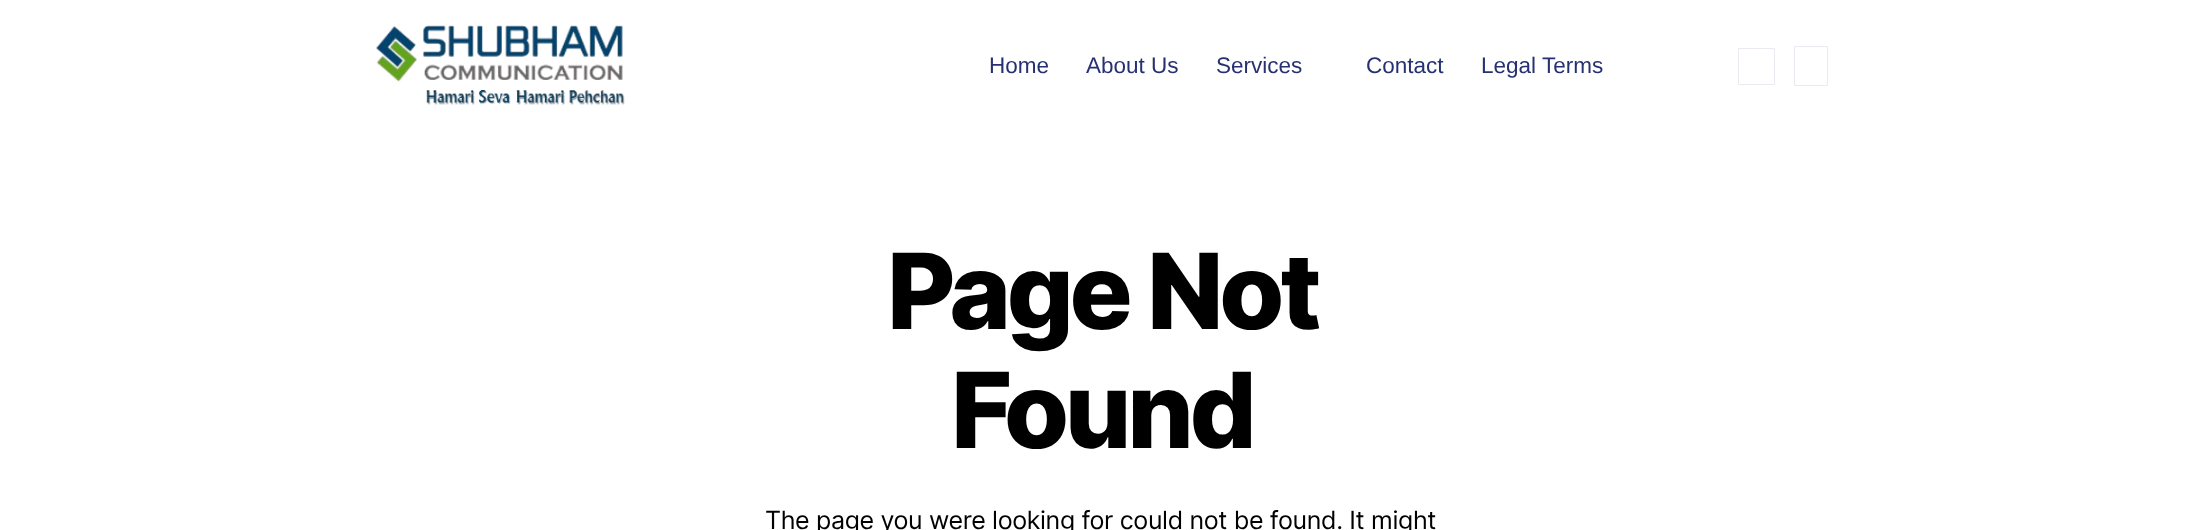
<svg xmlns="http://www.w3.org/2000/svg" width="2202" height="530">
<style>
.a{font:22.5px Liberation Sans;fill:#273171}
.b{font:800 105px Inter;letter-spacing:-4.25px;fill:#000}
.c{font:25px Inter;letter-spacing:-0.35px;fill:#000}
</style>
<rect width="100%" height="100%" fill="#fff"/>
<image href="1.png" x="375" y="25" width="250" height="80"/>
<path fill="none" stroke="#eaebf1" d="M1738.5 48.5h36v36H1738.5z"/>
<path fill="none" stroke="#eaebf1" d="M1794.5 46.5h33v39H1794.5z"/>
<text class="a" x="989" y="73">Home</text>
<text class="a" x="1086" y="73">About Us</text>
<text class="a" x="1216" y="73">Services</text>
<text class="a" x="1366" y="73">Contact</text>
<text class="a" x="1481" y="73">Legal Terms</text>
<text class="b" x="887" y="329">Page Not</text>
<text class="b" x="951" y="448">Found</text>
<text class="c" x="765" y="529">The page you were looking for could not be found. It might</text>
</svg>
